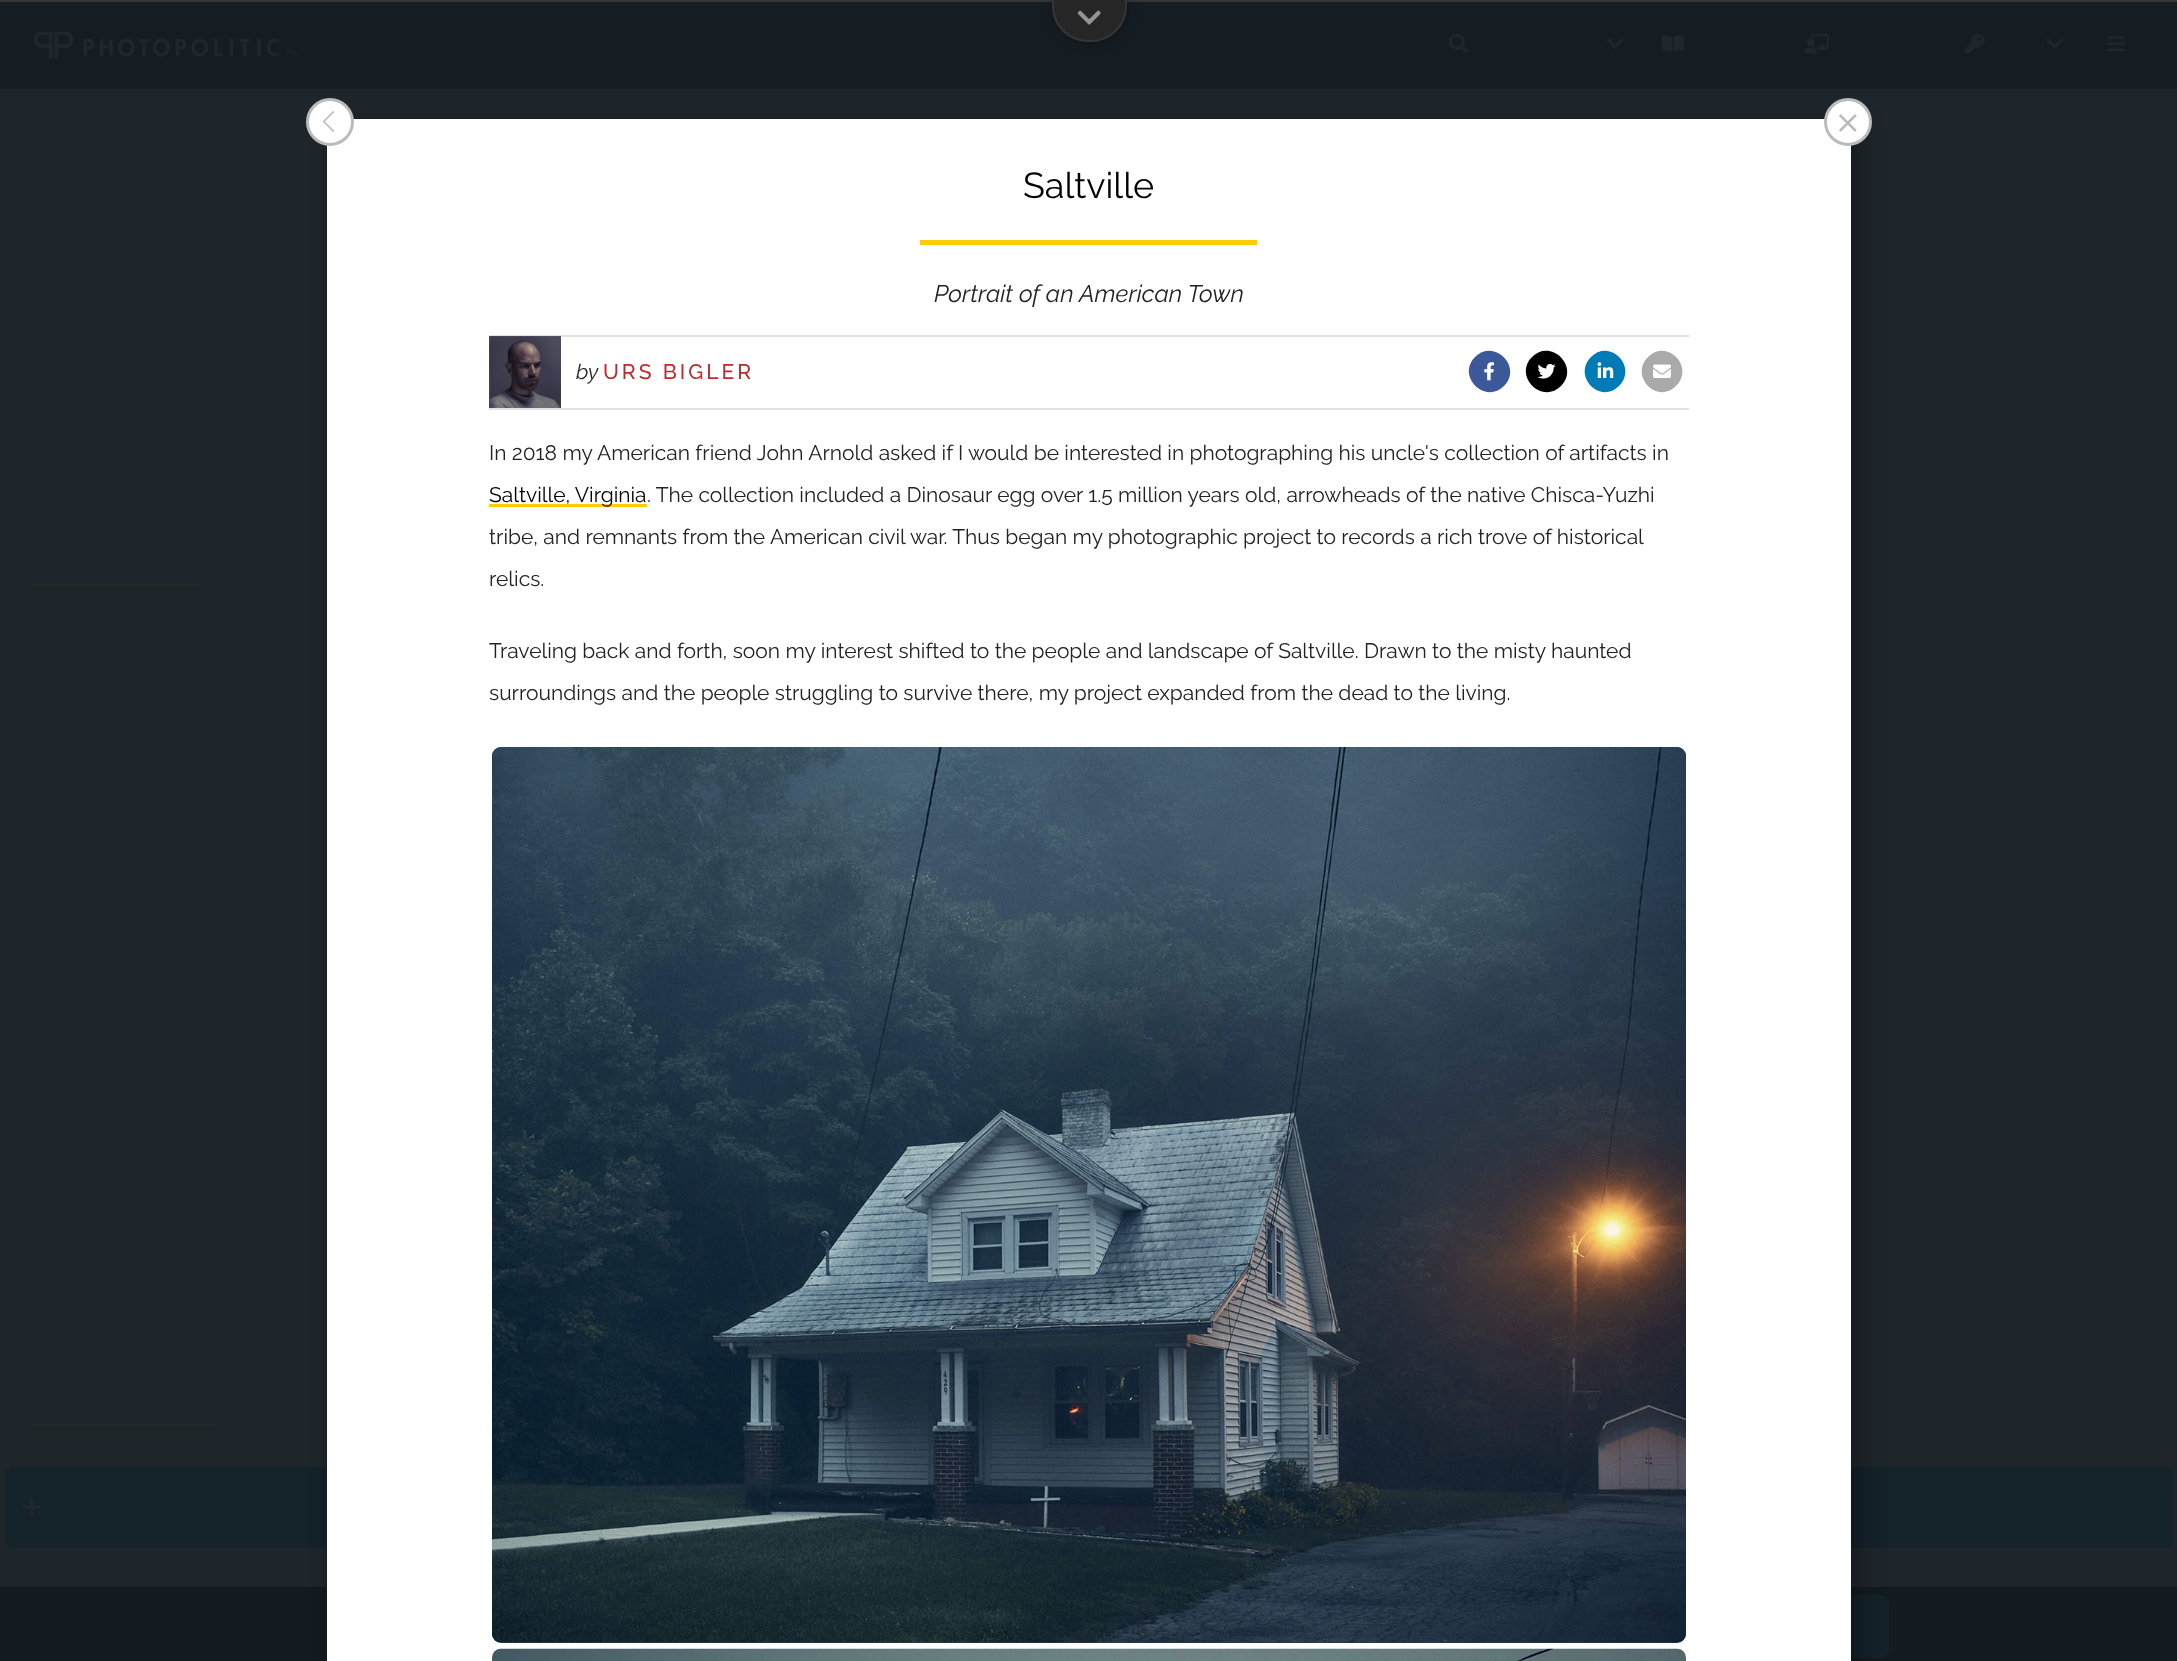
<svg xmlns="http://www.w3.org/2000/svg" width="2177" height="1661">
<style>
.a{font:36px Raleway;fill:#000}
.b{font:italic 24px Raleway;fill:#222}
.c{font:italic 21px Raleway;fill:#222}
.d{font:500 21px Raleway;letter-spacing:3px;fill:#c1272d}
.e{font:21px Raleway;fill:#222}
.f{font:21px Raleway;fill:#000}
</style>
<rect width="100%" height="100%" fill="#1e262b"/>
<path fill="#363636" d="M0 0h2177v2H0z"/>
<path fill="#151d23" d="M0 2h2177v87H0z"/>
<rect fill="#0000004a" filter="blur(6px)" x="1053" y="-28" width="75" height="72" rx="36"/>
<rect fill="#262626" stroke="#363636" stroke-width="2" x="1053" y="-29" width="73" height="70" rx="35"/>
<image href="1.png" x="1077" y="10" width="24" height="15"/>
<image href="2.png" x="33" y="32" width="264" height="27"/>
<image href="3.png" x="1449" y="33" width="20" height="21"/>
<image href="4.png" x="1606" y="38" width="18" height="11"/>
<image href="5.png" x="1662" y="35" width="22" height="18"/>
<image href="6.png" x="1804" y="33" width="25" height="21"/>
<image href="7.png" x="1965" y="33" width="20" height="21"/>
<image href="8.png" x="2046" y="38" width="17" height="11"/>
<image href="9.png" x="2107" y="36" width="18" height="16"/>
<rect fill="#142229" x="6" y="1467" width="2168" height="81" rx="8"/>
<path fill="#131b21" d="M0 1587h2177v74H0z"/>
<rect fill="#142229" x="1803" y="1595" width="86" height="63" rx="8"/>
<rect fill="#00000054" filter="blur(13.5px)" x="335" y="126" width="1524" height="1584" rx="8"/>
<path fill="#fff" d="M327 119h1524v1542H327z"/>
<circle fill="#fff" stroke="#bbb" stroke-width="3" cx="330" cy="122" r="22.5"/>
<image href="10.png" x="322" y="111" width="12" height="21"/>
<circle fill="#fff" stroke="#bbb" stroke-width="3" cx="1848" cy="122" r="22.5"/>
<image href="11.png" x="1839" y="114" width="18" height="18"/>
<path fill="#fc0" d="M920 240h337v5H920z"/>
<path fill="#e2e2e2" d="M489 335h1200v2H489z"/>
<image href="12.png" x="489" y="336" width="72" height="72"/>
<path fill="#3b5998" d="M1475 357c19-19 48 10 29 29c-19 19-48-10-29-29z"/>
<image href="13.png" x="1484" y="362" width="10" height="19"/>
<path fill="#000" d="M1532 357c19-19 48 10 29 29c-19 19-48-10-29-29z"/>
<image href="14.png" x="1537" y="364" width="19" height="15"/>
<path fill="#007bb5" d="M1591 357c19-19 47 10 28 29c-19 19-47-10-28-29z"/>
<image href="15.png" x="1597" y="362" width="17" height="16"/>
<path fill="#aaa" d="M1648 357c19-19 47 10 28 29c-19 19-47-10-28-29z"/>
<image href="16.png" x="1653" y="364" width="18" height="14"/>
<path fill="#e2e2e2" d="M489 408h1200v2H489z"/>
<path fill="#fc0" d="M489 504h158v3H489z"/>
<rect fill="#2a3b4a" x="492" y="747" width="1194" height="896" rx="9"/>
<image href="17.png" x="492" y="747" width="1194" height="896"/>
<image href="18.png" x="492" y="1648" width="1194" height="13"/>
<path fill="#1f241f" d="M29 588h175v2H29z"/>
<path fill="#1f241f" d="M29 1428h187v2H29z"/>
<image href="19.png" x="22" y="1497" width="19" height="20"/>
<text class="a" x="1023" y="198">Saltville</text>
<text class="b" x="934" y="302">Portrait of an American Town</text>
<text class="c" x="576" y="379">by</text>
<text class="d" x="603" y="379">URS BIGLER</text>
<text class="e" x="489" y="460">In 2018 my American friend John Arnold asked if I would be interested in photographing his uncle's collection of artifacts in</text>
<text class="f" x="489" y="502">Saltville, Virginia</text>
<text class="e" x="647" y="502">. The collection included a Dinosaur egg over 1.5 million years old, arrowheads of the native Chisca-Yuzhi</text>
<text class="e" x="489" y="544">tribe, and remnants from the American civil war. Thus began my photographic project to records a rich trove of historical</text>
<text class="e" x="489" y="586">relics.</text>
<text class="e" x="489" y="658">Traveling back and forth, soon my interest shifted to the people and landscape of Saltville. Drawn to the misty haunted</text>
<text class="e" x="489" y="700">surroundings and the people struggling to survive there, my project expanded from the dead to the living.</text>
</svg>
